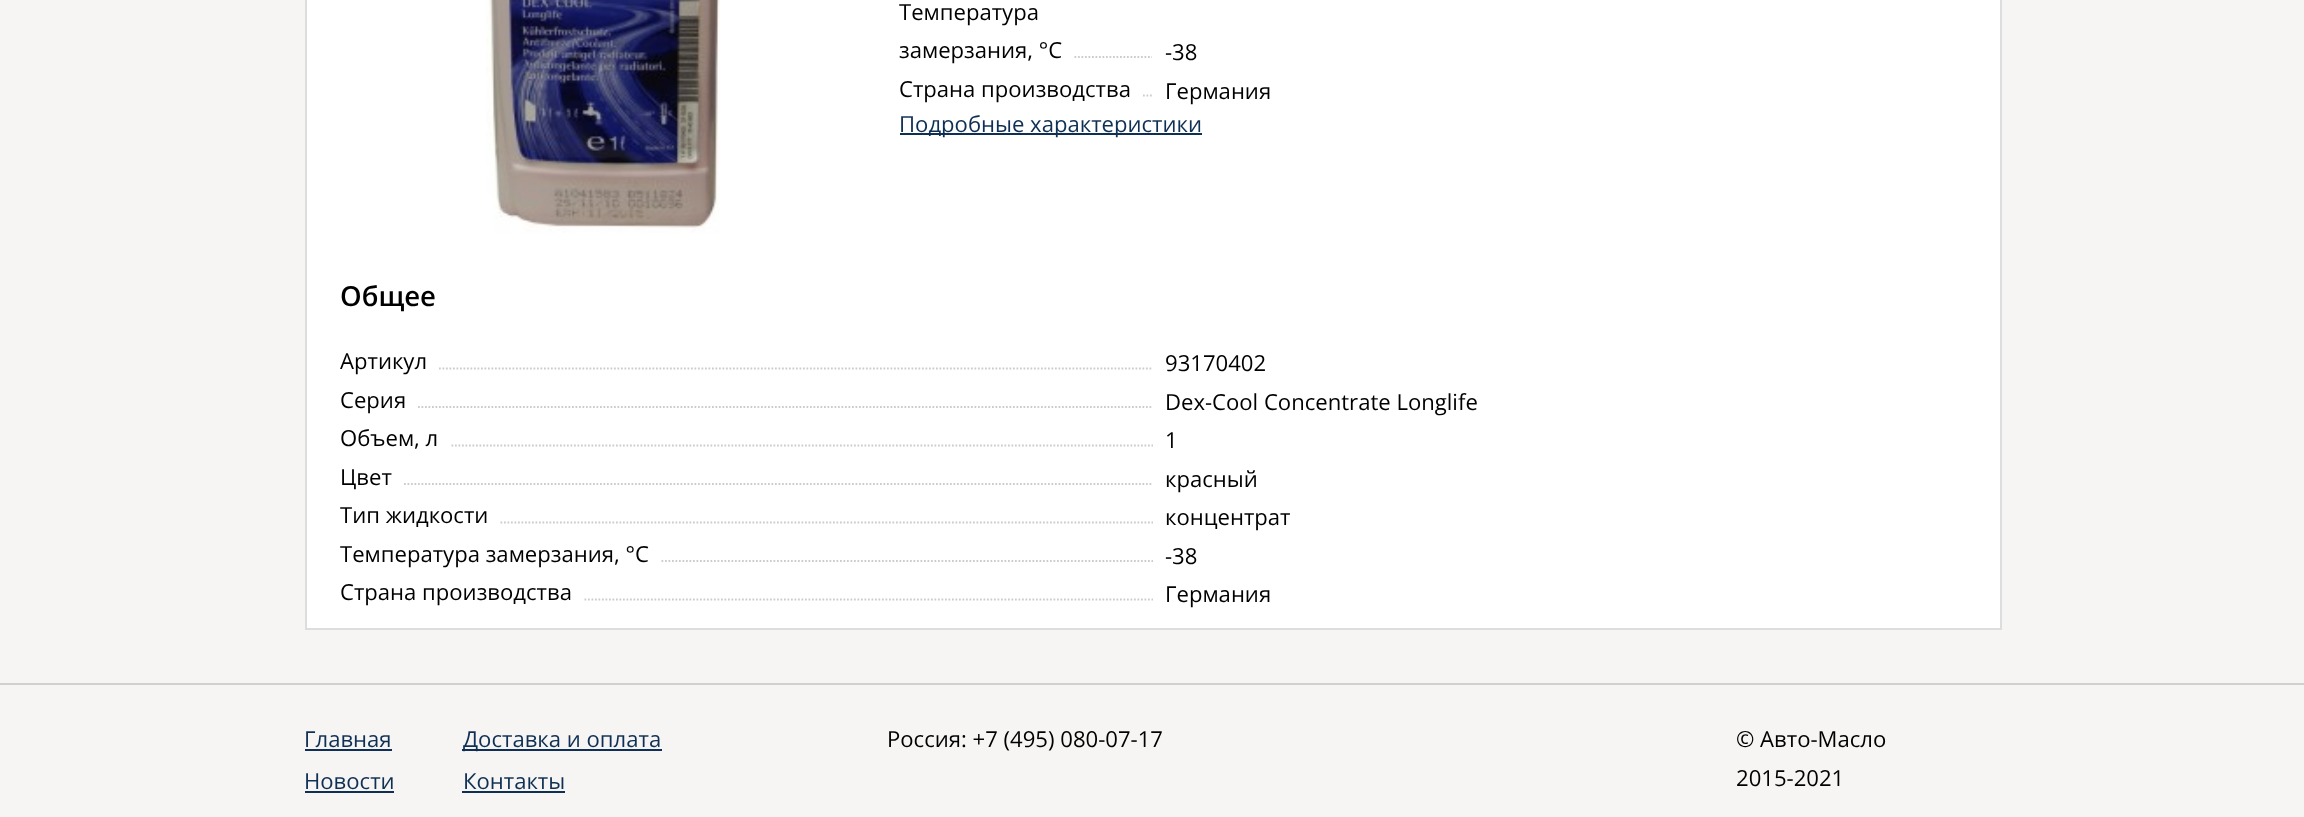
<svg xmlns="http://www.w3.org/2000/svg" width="2304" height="817">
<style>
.a{font:22.1px Open Sans;fill:#000}
.b{font:22.1px Open Sans;fill:#0f3054}
.c{font:600 27.5px Open Sans;fill:#000}
</style>
<defs>
<clipPath id="clip1"><path d="M900 0h252v68H900z"/></clipPath>
<clipPath id="clip2"><path d="M900 68h252v39H900z"/></clipPath>
<clipPath id="clip3"><path d="M341 341h812v39H341z"/></clipPath>
<clipPath id="clip4"><path d="M341 380h812v38H341z"/></clipPath>
<clipPath id="clip5"><path d="M341 418h812v39H341z"/></clipPath>
<clipPath id="clip6"><path d="M341 457h812v38H341z"/></clipPath>
<clipPath id="clip7"><path d="M341 495h812v39H341z"/></clipPath>
<clipPath id="clip8"><path d="M341 534h812v38H341z"/></clipPath>
<clipPath id="clip9"><path d="M341 572h812v39H341z"/></clipPath>
</defs>
<rect width="100%" height="100%" fill="#f6f5f3"/>
<path fill="#fff" stroke="#ddd" stroke-width="2" d="M306 -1h1695v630H306z"/>
<image href="1.png" x="486" y="0" width="234" height="233"/>
<g clip-path="url(#clip1)">
<path fill="none" stroke="#ccc" stroke-width="1.8" stroke-dasharray="1.75 1.75" d="M1074.5 57h253.5"/>
</g>
<g clip-path="url(#clip2)">
<path fill="none" stroke="#ccc" stroke-width="1.8" stroke-dasharray="1.75 1.75" d="M1143 95.5h253.5"/>
</g>
<path fill="#0f3054" d="M900 133h302v2H900z"/>
<g clip-path="url(#clip3)">
<path fill="none" stroke="#ccc" stroke-width="1.8" stroke-dasharray="1.75 1.75" d="M439 368.5h812"/>
</g>
<g clip-path="url(#clip4)">
<path fill="none" stroke="#ccc" stroke-width="1.8" stroke-dasharray="1.75 1.75" d="M418 407h812"/>
</g>
<g clip-path="url(#clip5)">
<path fill="none" stroke="#ccc" stroke-width="1.8" stroke-dasharray="1.75 1.75" d="M451.5 445.5h812"/>
</g>
<g clip-path="url(#clip6)">
<path fill="none" stroke="#ccc" stroke-width="1.8" stroke-dasharray="1.75 1.75" d="M404 484h812"/>
</g>
<g clip-path="url(#clip7)">
<path fill="none" stroke="#ccc" stroke-width="1.8" stroke-dasharray="1.75 1.75" d="M500.5 522.5h812"/>
</g>
<g clip-path="url(#clip8)">
<path fill="none" stroke="#ccc" stroke-width="1.8" stroke-dasharray="1.75 1.75" d="M661.5 561h812"/>
</g>
<g clip-path="url(#clip9)">
<path fill="none" stroke="#ccc" stroke-width="1.8" stroke-dasharray="1.75 1.75" d="M584.5 599.5h812"/>
</g>
<path fill="#d1d0cf" d="M0 683h2304v2H0z"/>
<path fill="#0f3054" d="M305 749h87v2H305z"/>
<path fill="#0f3054" d="M305 791h89v2H305z"/>
<path fill="#0f3054" d="M462 749h200v2H462z"/>
<path fill="#0f3054" d="M462 791h103v2H462z"/>
<text class="a" x="899" y="20">Температура</text>
<text class="a" x="899" y="58">замерзания, °C</text>
<text class="a" x="1165" y="60">-38</text>
<text class="a" x="899" y="97">Страна производства</text>
<text class="a" x="1165" y="99">Германия</text>
<text class="b" x="899" y="132">Подробные характеристики</text>
<text class="c" x="340" y="306">Общее</text>
<text class="a" x="340" y="369">Артикул</text>
<text class="a" x="1165" y="371">93170402</text>
<text class="a" x="340" y="408">Серия</text>
<text class="a" x="1165" y="410">Dex-Cool Concentrate Longlife</text>
<text class="a" x="340" y="446">Объем, л</text>
<text class="a" x="1165" y="448">1</text>
<text class="a" x="340" y="485">Цвет</text>
<text class="a" x="1165" y="487">красный</text>
<text class="a" x="340" y="523">Тип жидкости</text>
<text class="a" x="1165" y="525">концентрат</text>
<text class="a" x="340" y="562">Температура замерзания, °C</text>
<text class="a" x="1165" y="564">-38</text>
<text class="a" x="340" y="600">Страна производства</text>
<text class="a" x="1165" y="602">Германия</text>
<text class="b" x="304" y="747">Главная</text>
<text class="b" x="304" y="789">Новости</text>
<text class="b" x="463" y="747">Доставка и оплата</text>
<text class="b" x="463" y="789">Контакты</text>
<text class="a" x="887" y="747">Россия: +7 (495) 080-07-17</text>
<text class="a" x="1736" y="747">© Авто-Масло</text>
<text class="a" x="1736" y="786">2015-2021</text>
</svg>
